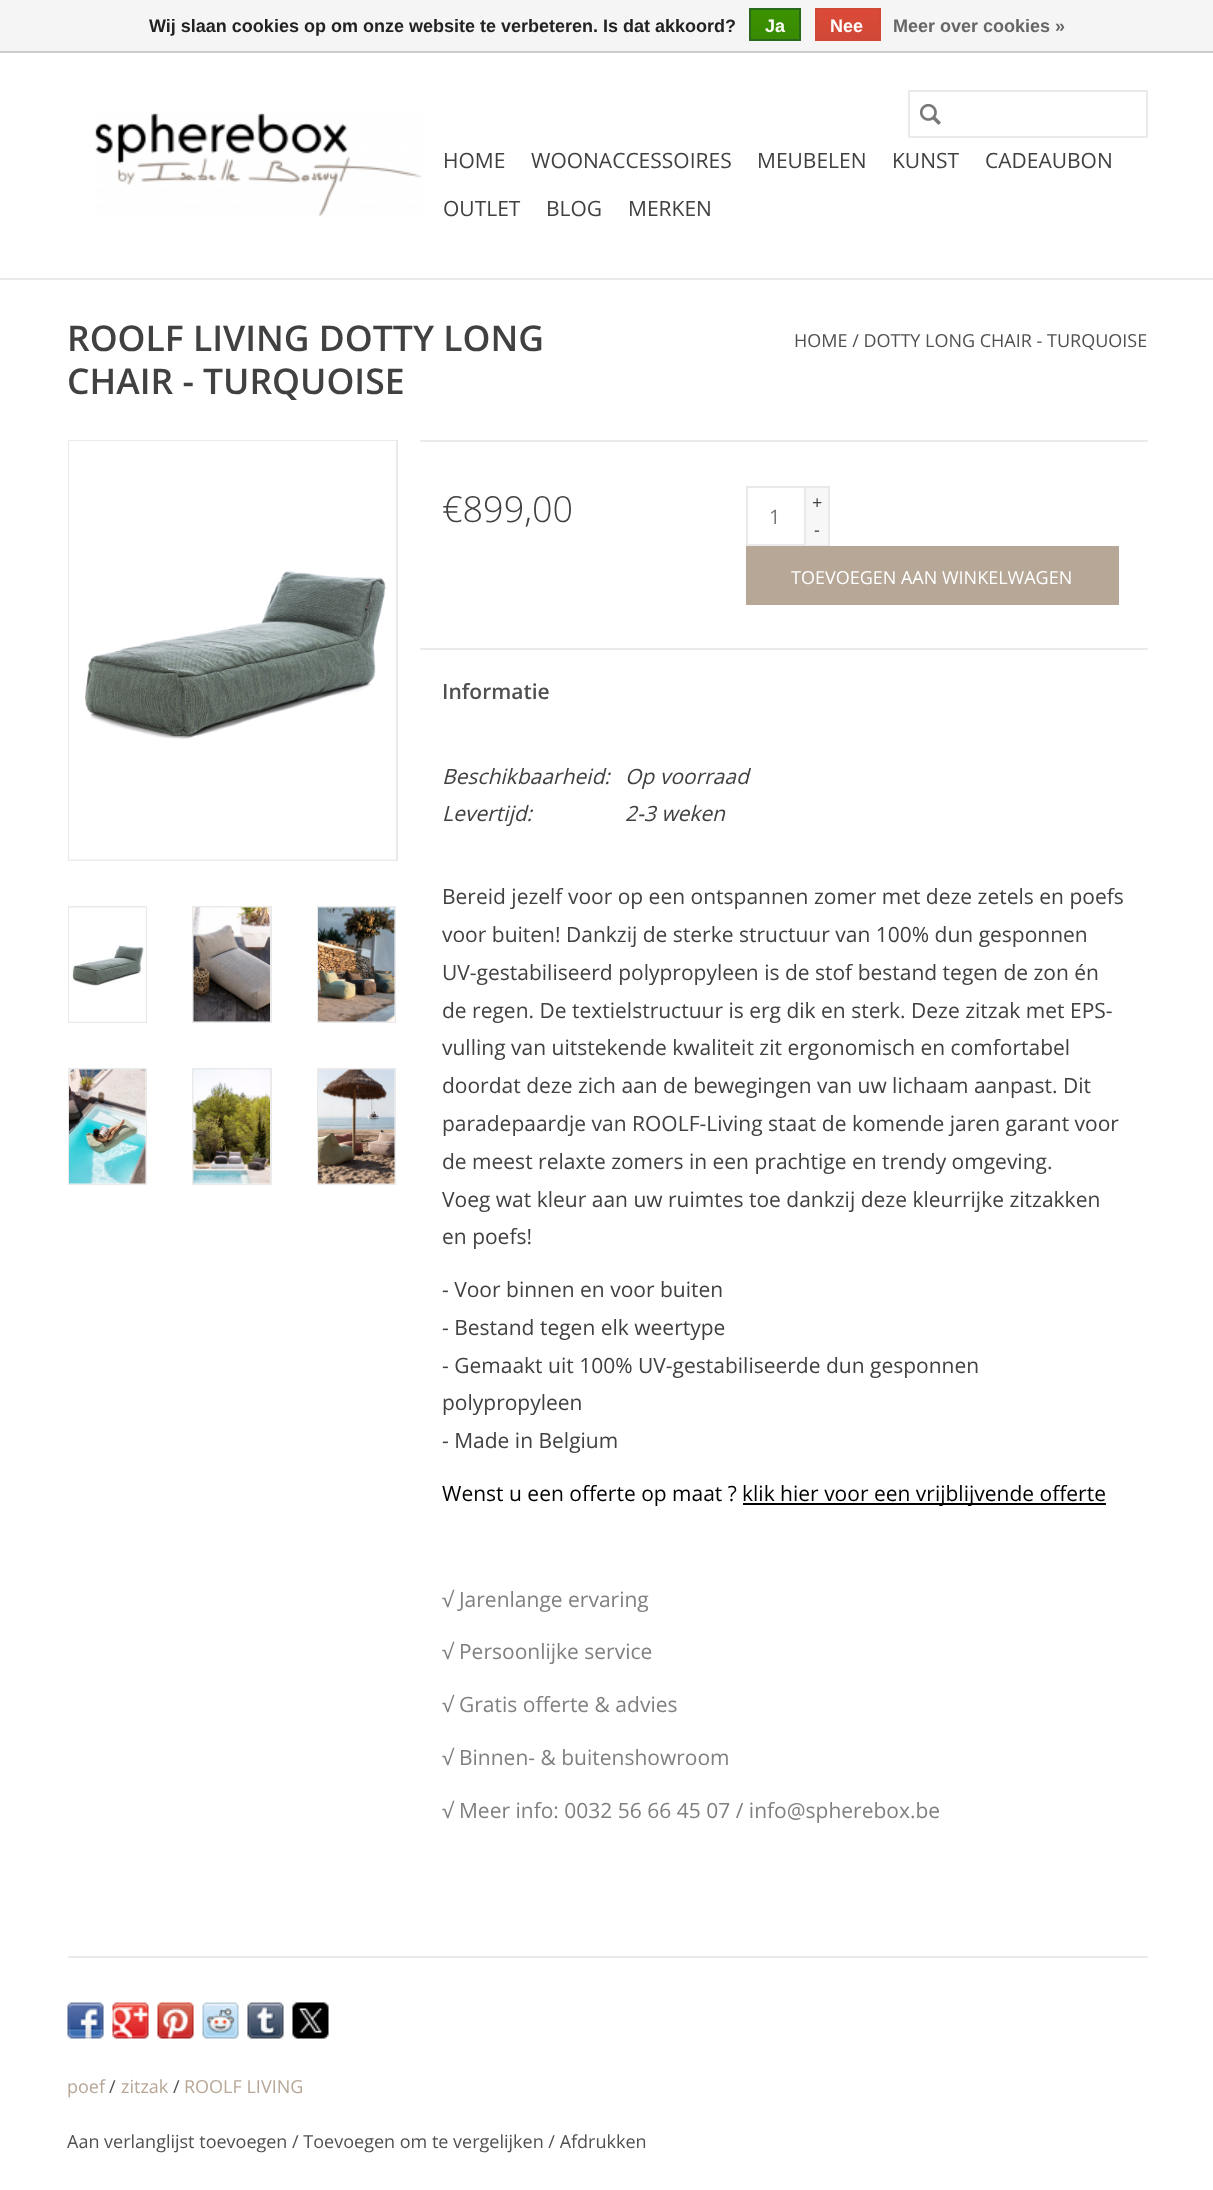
<svg xmlns="http://www.w3.org/2000/svg" width="1213" height="2190">
<style>
.a{font:bold 18px Liberation Sans;fill:#222}
.b{font:bold 18px Liberation Sans;fill:#fff}
.c{font:bold 18px Liberation Sans;fill:#666}
.d{font:21px Open Sans;fill:#414141}
.e{font:600 35.5px Open Sans;fill:#414141}
.f{font:18px Open Sans;fill:#505050}
.g{font:300 36px Open Sans;fill:#414141}
.h{font:20px Open Sans;fill:#777}
.i{font:18px Open Sans;fill:#414141}
.j{font:18px Open Sans;fill:#fff}
.k{font:600 21px Open Sans;fill:#505050}
.l{font:italic 21px Open Sans;fill:#414141}
.m{font:21px Open Sans;fill:#000}
.n{font:21px Open Sans;fill:#808080}
.o{font:18px Open Sans;fill:#b7a797}
</style>
<defs>
<linearGradient id="g1" gradientUnits="userSpaceOnUse" x1="775" y1="9" x2="775" y2="39"><stop offset="0" stop-color="#3c9300"/><stop offset="1" stop-color="#398a00"/></linearGradient>
<linearGradient id="g2" gradientUnits="userSpaceOnUse" x1="848" y1="9" x2="848" y2="39"><stop offset="0" stop-color="#dc4a38"/><stop offset="1" stop-color="#d14836"/></linearGradient>
</defs>
<rect width="100%" height="100%" fill="#fff"/>
<path fill="#f5f5f5" d="M0 0h1213v51H0z"/>
<path fill="#ccc" d="M0 51h1213v2H0z"/>
<path fill="url(#g1)" d="M751 10h48v29H751z"/>
<path fill="none" stroke="#29691d" stroke-width="2" d="M750 9h50v31H750z"/>
<path fill="url(#g2)" d="M817 10h62v29H817z"/>
<path fill="none" stroke="#d14836" stroke-width="2" d="M816 9h64v31H816z"/>
<path fill="#eaeaea" d="M0 278h1213v2H0z"/>
<image href="1.png" x="95" y="113" width="327" height="104"/>
<path fill="none" stroke="#eaeaea" stroke-width="2" d="M909 91h238v46H909z"/>
<image href="2.png" x="919" y="103" width="22" height="22"/>
<path fill="none" stroke="#eaeaea" stroke-width="2" d="M69 441h328v419H69z"/>
<path fill="#f7f7f7" d="M69 859h327v1H69z"/>
<image href="3.png" x="69" y="441" width="327" height="418"/>
<path fill="none" stroke="#eaeaea" stroke-width="2" d="M69 907h77v115H69z"/>
<path fill="#f7f7f7" d="M69 908h77v114H69z"/>
<image href="4.png" x="69" y="907" width="77" height="115"/>
<path fill="none" stroke="#eaeaea" stroke-width="2" d="M193 907h78v115H193z"/>
<path fill="#f7f7f7" d="M194 1021h76v1H194z"/>
<image href="5.png" x="193" y="907" width="77" height="115"/>
<path fill="none" stroke="#eaeaea" stroke-width="2" d="M318 907h77v115H318z"/>
<path fill="#f7f7f7" d="M318 908h77v114H318z"/>
<image href="6.png" x="318" y="907" width="77" height="115"/>
<path fill="none" stroke="#eaeaea" stroke-width="2" d="M69 1069h77v115H69z"/>
<path fill="#f7f7f7" d="M69 1070h77v114H69z"/>
<image href="7.png" x="69" y="1069" width="77" height="115"/>
<path fill="none" stroke="#eaeaea" stroke-width="2" d="M193 1069h78v115H193z"/>
<path fill="#f7f7f7" d="M194 1183h76v1H194z"/>
<image href="8.png" x="193" y="1069" width="77" height="115"/>
<path fill="none" stroke="#eaeaea" stroke-width="2" d="M318 1069h77v115H318z"/>
<path fill="#f7f7f7" d="M318 1070h77v114H318z"/>
<image href="9.png" x="318" y="1069" width="77" height="115"/>
<path fill="#eaeaea" d="M420 440h728v2H420z"/>
<path fill="none" stroke="#eaeaea" stroke-width="2" d="M747 487h58v58H747z"/>
<path fill="#f7f7f7" d="M806 488h22v57H806z"/>
<path fill="#eaeaea" d="M806 486h24v2H806z"/>
<path fill="#eaeaea" d="M828 486h2v60H828z"/>
<path fill="#eaeaea" d="M806 545h24v1H806z"/>
<path fill="#b7a797" d="M746 546h373v59H746z"/>
<path fill="#eaeaea" d="M420 648h728v2H420z"/>
<path fill="#000" d="M743 1503h363v2H743z"/>
<path fill="#eaeaea" d="M68 1956h1080v2H68z"/>
<image href="10.png" x="67" y="2002" width="37" height="37"/>
<image href="11.png" x="112" y="2002" width="37" height="37"/>
<image href="12.png" x="157" y="2002" width="37" height="37"/>
<image href="13.png" x="202" y="2002" width="37" height="37"/>
<image href="14.png" x="247" y="2002" width="37" height="37"/>
<image href="15.png" x="292" y="2002" width="37" height="37"/>
<text class="a" x="149" y="32">Wij slaan cookies op om onze website te verbeteren. Is dat akkoord?</text>
<text class="b" x="765" y="32">Ja</text>
<text class="b" x="830" y="32">Nee</text>
<text class="c" x="893" y="32">Meer over cookies »</text>
<text class="d" x="443" y="168">HOME</text>
<text class="d" x="531" y="168">WOONACCESSOIRES</text>
<text class="d" x="757" y="168">MEUBELEN</text>
<text class="d" x="892" y="168">KUNST</text>
<text class="d" x="985" y="168">CADEAUBON</text>
<text class="d" x="443" y="216">OUTLET</text>
<text class="d" x="546" y="216">BLOG</text>
<text class="d" x="628" y="216">MERKEN</text>
<text class="e" x="67" y="351">ROOLF LIVING DOTTY LONG</text>
<text class="e" x="67" y="394">CHAIR - TURQUOISE</text>
<text class="f" x="794" y="347">HOME / DOTTY LONG CHAIR - TURQUOISE</text>
<text class="g" x="442" y="522">€899,00</text>
<text class="h" x="769" y="524">1</text>
<text class="i" x="812" y="509">+</text>
<text class="i" x="814" y="536">-</text>
<text class="j" x="791" y="584">TOEVOEGEN AAN WINKELWAGEN</text>
<text class="k" x="442" y="699">Informatie</text>
<text class="l" x="442" y="784">Beschikbaarheid:</text>
<text class="l" x="625" y="784">Op voorraad</text>
<text class="l" x="442" y="821">Levertijd:</text>
<text class="l" x="625" y="821">2-3 weken</text>
<text class="d" x="442" y="904">Bereid jezelf voor op een ontspannen zomer met deze zetels en poefs</text>
<text class="d" x="442" y="942">voor buiten! Dankzij de sterke structuur van 100% dun gesponnen</text>
<text class="d" x="442" y="980">UV-gestabiliseerd polypropyleen is de stof bestand tegen de zon én</text>
<text class="d" x="442" y="1018">de regen. De textielstructuur is erg dik en sterk. Deze zitzak met EPS-</text>
<text class="d" x="442" y="1055">vulling van uitstekende kwaliteit zit ergonomisch en comfortabel</text>
<text class="d" x="442" y="1093">doordat deze zich aan de bewegingen van uw lichaam aanpast. Dit</text>
<text class="d" x="442" y="1131">paradepaardje van ROOLF-Living staat de komende jaren garant voor</text>
<text class="d" x="442" y="1169">de meest relaxte zomers in een prachtige en trendy omgeving.</text>
<text class="d" x="442" y="1207">Voeg wat kleur aan uw ruimtes toe dankzij deze kleurrijke zitzakken</text>
<text class="d" x="442" y="1244">en poefs!</text>
<text class="d" x="442" y="1297">- Voor binnen en voor buiten</text>
<text class="d" x="442" y="1335">- Bestand tegen elk weertype</text>
<text class="d" x="442" y="1373">- Gemaakt uit 100% UV-gestabiliseerde dun gesponnen</text>
<text class="d" x="442" y="1410">polypropyleen</text>
<text class="d" x="442" y="1448">- Made in Belgium</text>
<text class="m" x="442" y="1501">Wenst u een offerte op maat ?</text>
<text class="m" x="742" y="1501">klik hier voor een vrijblijvende offerte</text>
<text class="n" x="442" y="1607">√ Jarenlange ervaring</text>
<text class="n" x="442" y="1659">√ Persoonlijke service</text>
<text class="n" x="442" y="1712">√ Gratis offerte &amp; advies</text>
<text class="n" x="442" y="1765">√ Binnen- &amp; buitenshowroom</text>
<text class="n" x="442" y="1818">√ Meer info: 0032 56 66 45 07 / info@spherebox.be</text>
<text class="o" x="67" y="2093">poef</text>
<text class="f" x="109" y="2093">/</text>
<text class="o" x="121" y="2093">zitzak</text>
<text class="f" x="173" y="2093">/</text>
<text class="o" x="184" y="2093">ROOLF LIVING</text>
<text class="f" x="67" y="2148">Aan verlanglijst toevoegen / Toevoegen om te vergelijken / Afdrukken</text>
</svg>
